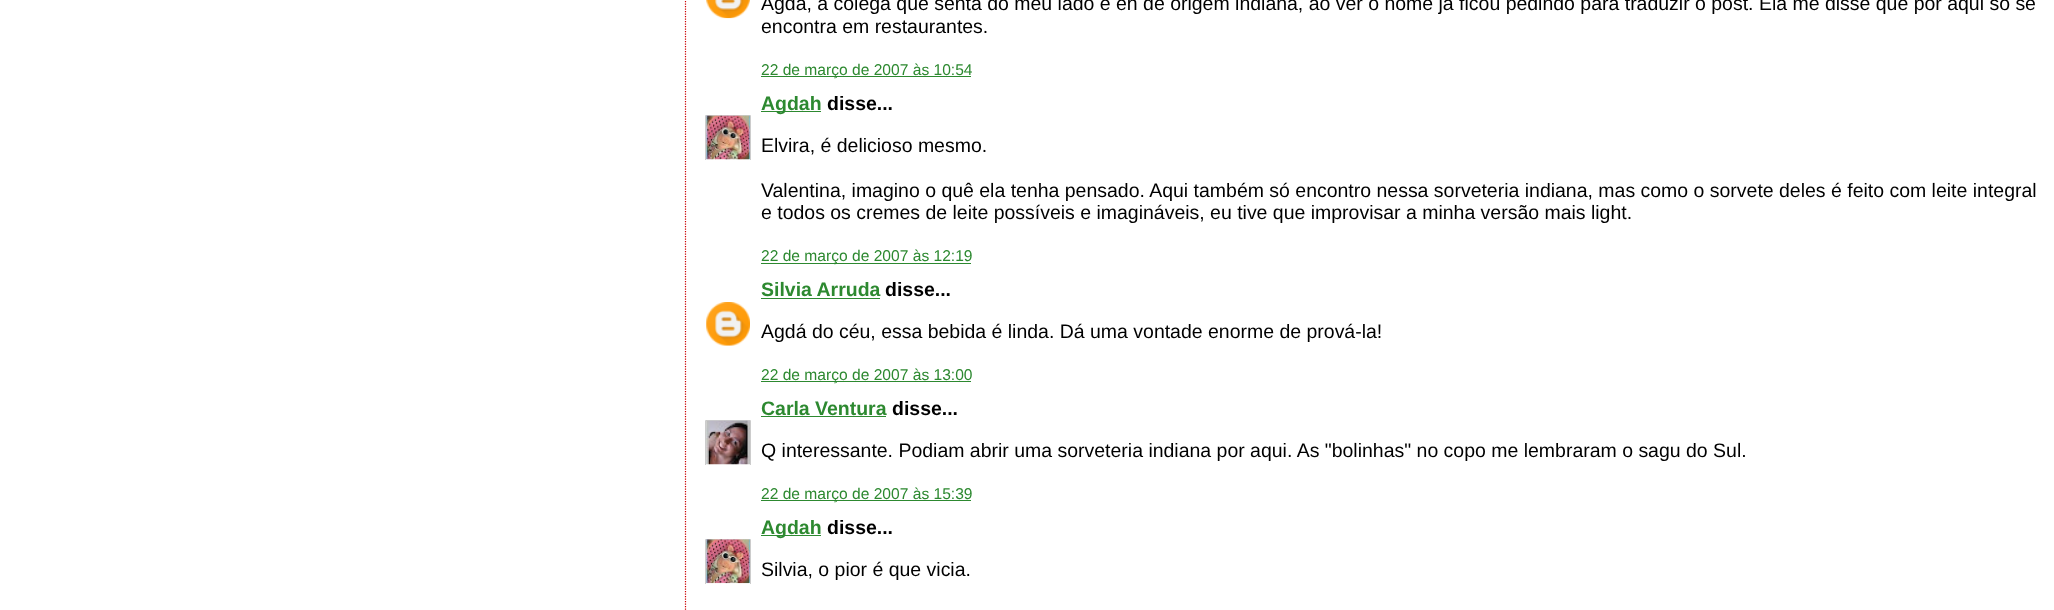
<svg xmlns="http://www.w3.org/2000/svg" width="2054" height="610">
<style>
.a{font:19.48px Liberation Sans;fill:#000}
.b{font:15.6px Liberation Sans;fill:#2d8930}
.c{font:bold 19.48px Liberation Sans;fill:#2d8930}
.d{font:bold 19.48px Liberation Sans;fill:#000}
</style>
<defs>
<clipPath id="clip1"><path d="M705 115h46v45H705z"/></clipPath>
<clipPath id="clip2"><path d="M705 420h46v45H705z"/></clipPath>
<clipPath id="clip3"><path d="M705 539h46v45H705z"/></clipPath>
</defs>
<rect width="100%" height="100%" fill="#fff"/>
<path fill="none" stroke="#c00" stroke-width="1.2" stroke-dasharray="1.25 1.25" d="M685.5-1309v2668"/>
<image href="1.png" x="706" y="0" width="44" height="19"/>
<path fill="#2d8930" d="M761 76h210v1H761z"/>
<path fill="#2d8930" d="M761 111h60v1H761z"/>
<g clip-path="url(#clip1)">
<path fill="none" stroke="#ccc" d="M705.5 115.5h45v45H705.5z"/>
</g>
<image href="2.png" x="706" y="115" width="44" height="45"/>
<path fill="#2d8930" d="M761 263h210v1H761z"/>
<path fill="#2d8930" d="M761 298h119v1H761z"/>
<image href="3.png" x="706" y="302" width="44" height="44"/>
<path fill="#2d8930" d="M761 381h210v1H761z"/>
<path fill="#2d8930" d="M761 416h125v1H761z"/>
<g clip-path="url(#clip2)">
<path fill="none" stroke="#ccc" d="M705.5 420.5h45v45H705.5z"/>
</g>
<image href="4.png" x="706" y="420" width="44" height="45"/>
<path fill="#2d8930" d="M761 500h210v1H761z"/>
<path fill="#2d8930" d="M761 535h60v1H761z"/>
<g clip-path="url(#clip3)">
<path fill="none" stroke="#ccc" d="M705.5 539.5h45v45H705.5z"/>
</g>
<image href="5.png" x="706" y="539" width="44" height="45"/>
<text class="a" x="761" y="10">Agda, a colega que senta do meu lado e eh de origem indiana, ao ver o nome ja ficou pedindo para traduzir o post. Ela me disse que por aqui so se</text>
<text class="a" x="761" y="33">encontra em restaurantes.</text>
<text class="b" x="761" y="75">22 de março de 2007 às 10:54</text>
<text class="c" x="761" y="110">Agdah</text>
<text class="d" x="827" y="110">disse...</text>
<text class="a" x="761" y="152">Elvira, é delicioso mesmo.</text>
<text class="a" x="761" y="197">Valentina, imagino o quê ela tenha pensado. Aqui também só encontro nessa sorveteria indiana, mas como o sorvete deles é feito com leite integral</text>
<text class="a" x="761" y="219">e todos os cremes de leite possíveis e imagináveis, eu tive que improvisar a minha versão mais light.</text>
<text class="b" x="761" y="261">22 de março de 2007 às 12:19</text>
<text class="c" x="761" y="296">Silvia Arruda</text>
<text class="d" x="885" y="296">disse...</text>
<text class="a" x="761" y="338">Agdá do céu, essa bebida é linda. Dá uma vontade enorme de prová-la!</text>
<text class="b" x="761" y="380">22 de março de 2007 às 13:00</text>
<text class="c" x="761" y="415">Carla Ventura</text>
<text class="d" x="892" y="415">disse...</text>
<text class="a" x="761" y="457">Q interessante. Podiam abrir uma sorveteria indiana por aqui. As "bolinhas" no copo me lembraram o sagu do Sul.</text>
<text class="b" x="761" y="499">22 de março de 2007 às 15:39</text>
<text class="c" x="761" y="534">Agdah</text>
<text class="d" x="827" y="534">disse...</text>
<text class="a" x="761" y="576">Silvia, o pior é que vicia.</text>
</svg>
